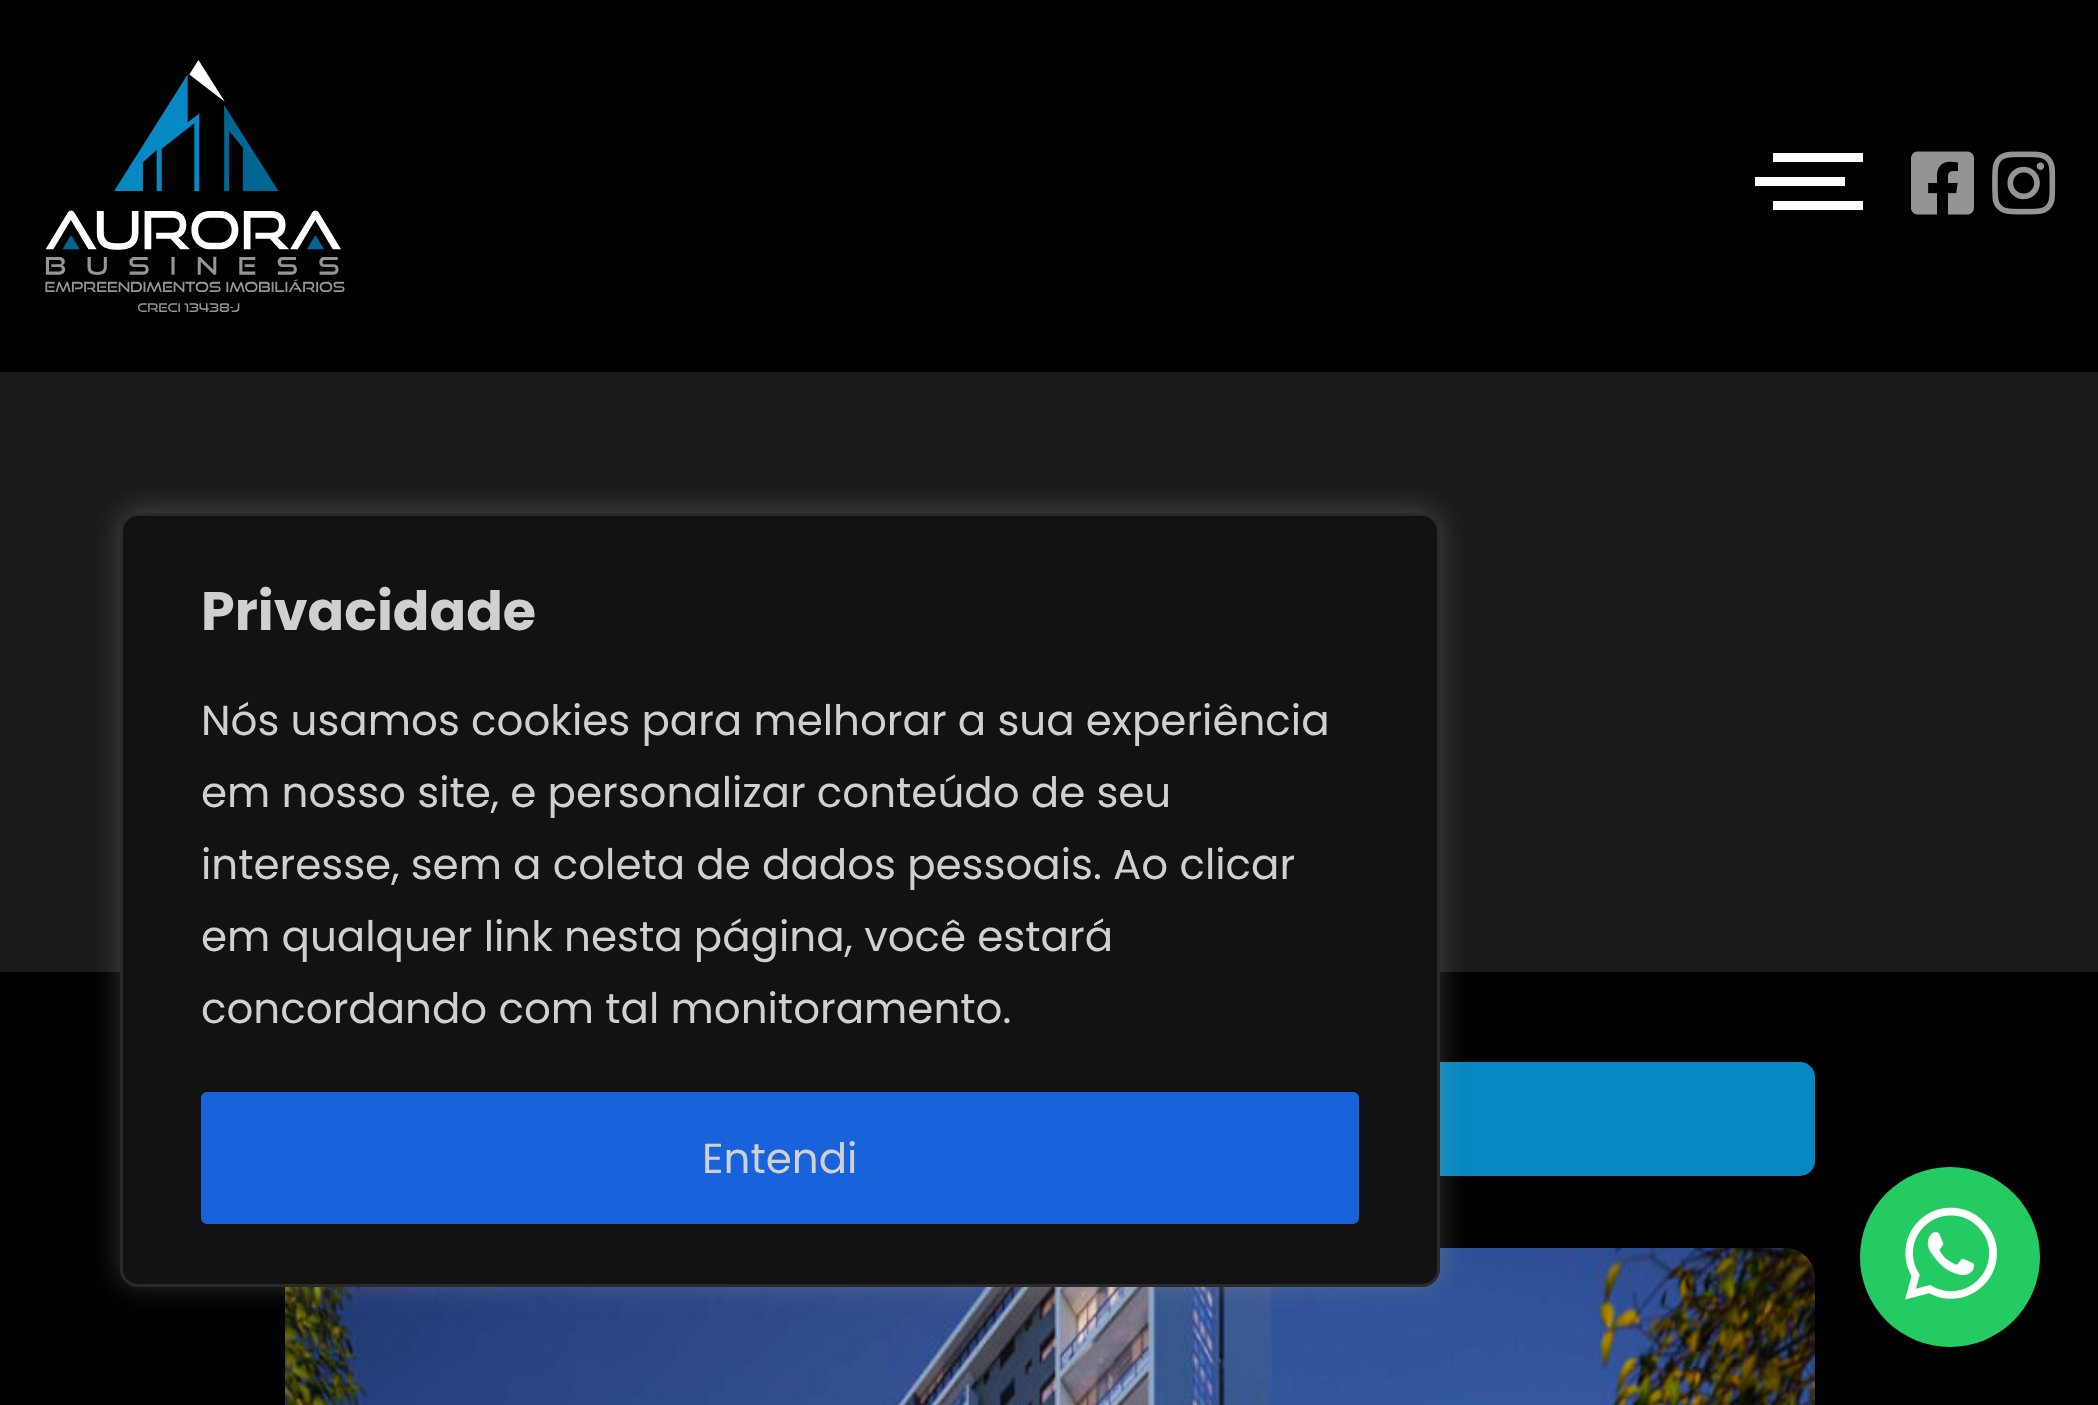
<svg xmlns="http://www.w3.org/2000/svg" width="2098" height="1405">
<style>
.a{font:bold 54px Poppins;fill:#d0d0d0}
.b{font:42px Poppins;fill:#d0d0d0}
</style>
<rect width="100%" height="100%" fill="#000"/>
<image href="1.png" x="45" y="60" width="300" height="252"/>
<path fill="#fff" d="M1773 153h90v9H1773z"/>
<path fill="#fff" d="M1755 177h90v9H1755z"/>
<path fill="#fff" d="M1773 201h90v9H1773z"/>
<image href="2.png" x="1911" y="151" width="63" height="64"/>
<image href="3.png" x="1992" y="151" width="64" height="64"/>
<path fill="#1a1a1a" d="M0 372h2098v600H0z"/>
<rect fill="#0688c2" stroke="#0688c2" stroke-width="3" x="286.5" y="1063.5" width="1527" height="111" rx="13.5"/>
<image href="4.png" x="285" y="1248" width="1530" height="157"/>
<rect fill="#acabab4d" filter="blur(15px)" x="120" y="510" width="1320" height="774" rx="18"/>
<rect fill="#121212" stroke="#2a2a2a" stroke-width="3" x="121.5" y="514.5" width="1317" height="771" rx="16.5"/>
<rect fill="#1863dc" stroke="#1863dc" stroke-width="6" x="204" y="1095" width="1152" height="126" rx="3"/>
<circle fill="#24cb62" cx="1950" cy="1257" r="90"/>
<image href="5.png" x="1905" y="1207" width="92" height="93"/>
<text class="a" x="201" y="630">Privacidade</text>
<text class="b" x="201" y="735">Nós usamos cookies para melhorar a sua experiência</text>
<text class="b" x="201" y="807">em nosso site, e personalizar conteúdo de seu</text>
<text class="b" x="201" y="879">interesse, sem a coleta de dados pessoais. Ao clicar</text>
<text class="b" x="201" y="951">em qualquer link nesta página, você estará</text>
<text class="b" x="201" y="1023">concordando com tal monitoramento.</text>
<text class="b" x="702" y="1173">Entendi</text>
</svg>
